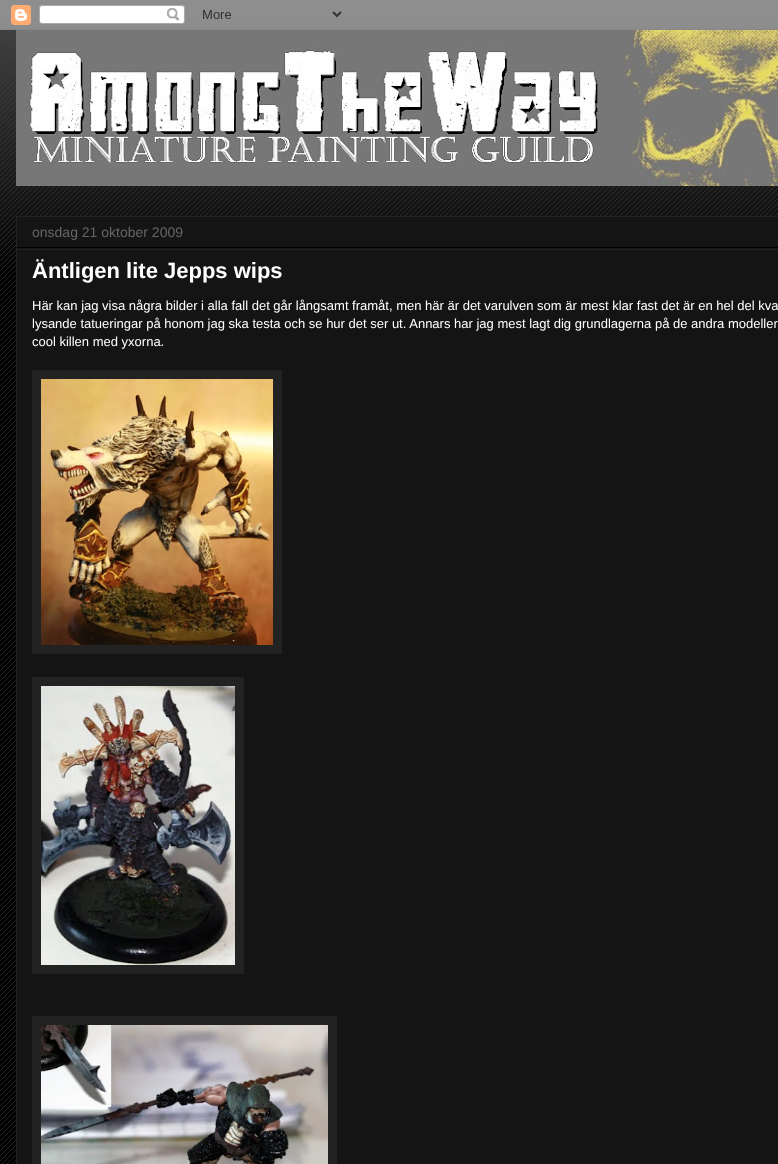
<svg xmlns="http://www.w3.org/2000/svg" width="778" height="1164">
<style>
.a{font:14px Liberation Sans;fill:#666}
.b{font:bold 22px Liberation Sans;fill:#fff}
.c{font:13px Liberation Sans;fill:#fff}
</style>
<rect width="100%" height="100%" fill="#000"/>
<image href="1.png" x="0" y="13" width="778" height="1151"/>
<image href="2.png" x="0" y="0" width="778" height="268"/>
<image href="3.png" x="0" y="0" width="778" height="30"/>
<image href="4.png" x="16" y="30" width="762" height="156"/>
<path fill="#141414" stroke="#222" d="M16.5 216.5h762v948H16.5z"/>
<path fill="#000" d="M17 247h761v1H17z"/>
<path fill="#222" d="M17 249h761v1H17z"/>
<path fill="#222" d="M32 370h250v284H32z"/>
<image href="5.png" x="41" y="379" width="232" height="266"/>
<path fill="#222" d="M32 677h212v297H32z"/>
<image href="6.png" x="41" y="686" width="194" height="279"/>
<path fill="#222" d="M32 1016h305v148H32z"/>
<image href="7.png" x="41" y="1025" width="287" height="139"/>
<text class="a" x="32" y="237">onsdag 21 oktober 2009</text>
<text class="b" x="32" y="278">Äntligen lite Jepps wips</text>
<text class="c" x="32" y="310">Här kan jag visa några bilder i alla fall det går långsamt framåt, men här är det varulven som är mest klar fast det är en hel del kva</text>
<text class="c" x="32" y="328">lysande tatueringar på honom jag ska testa och se hur det ser ut. Annars har jag mest lagt dig grundlagerna på de andra modeller</text>
<text class="c" x="32" y="346">cool killen med yxorna.</text>
</svg>
